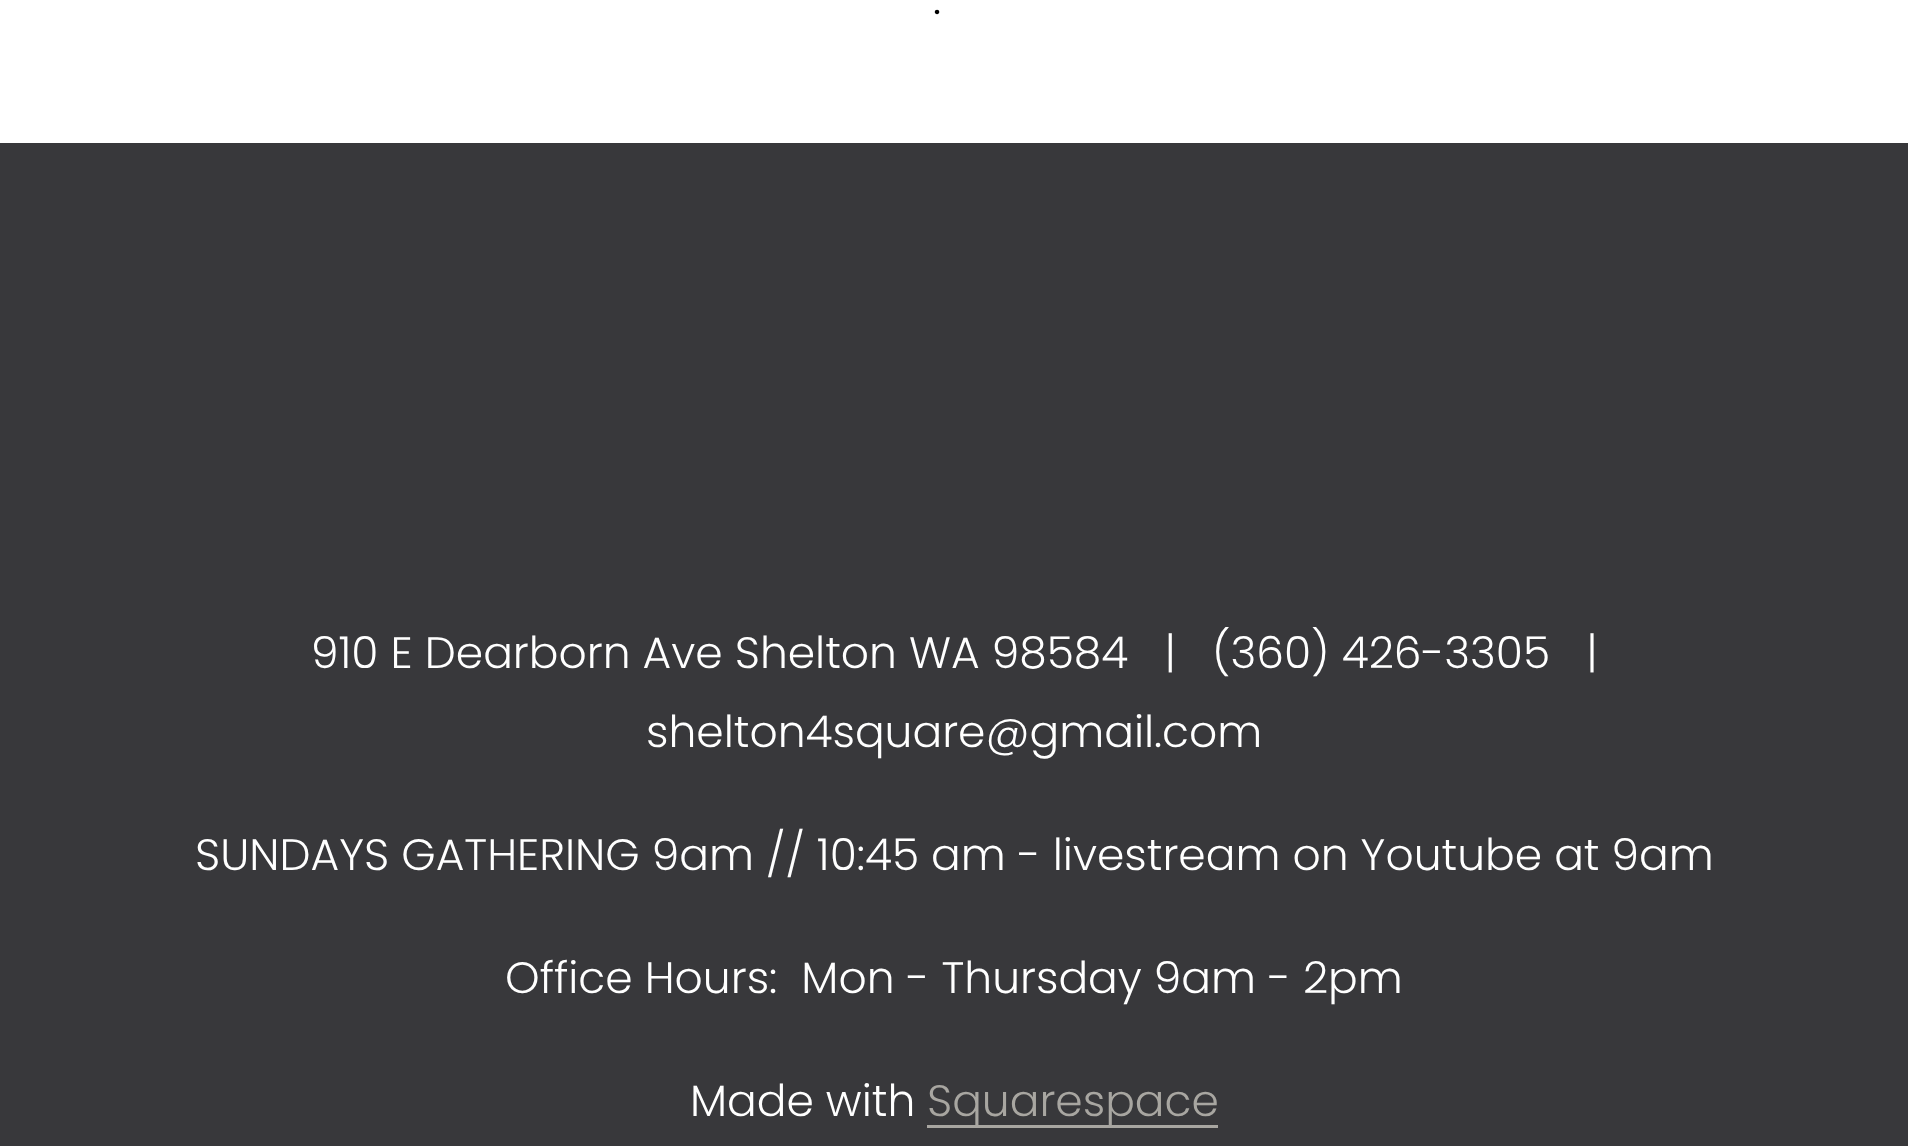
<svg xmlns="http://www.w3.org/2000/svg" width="1908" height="1146">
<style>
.a{font:300 44px Poppins;fill:#000}
.b{font:300 44px Poppins;fill:#fff}
.c{font:300 44px Poppins;fill:#a8a6a1}
</style>
<rect width="100%" height="100%" fill="#fff"/>
<path fill="#38383b" d="M0 143h1908v1003H0z"/>
<path fill="#a8a6a1" d="M927 1125h291v3H927z"/>
<text class="a" x="933" y="14">.</text>
<text class="b" xml:space="preserve" x="311" y="668">910 E Dearborn Ave Shelton WA 98584   |   (360) 426-3305   |</text>
<text class="b" x="646" y="747">shelton4square@gmail.com</text>
<text class="b" x="195" y="870">SUNDAYS GATHERING 9am // 10:45 am - livestream on Youtube at 9am</text>
<text class="b" xml:space="preserve" x="505" y="993">Office Hours:  Mon - Thursday 9am - 2pm</text>
<text class="b" x="690" y="1116">Made with</text>
<text class="c" x="927" y="1116">Squarespace</text>
</svg>
